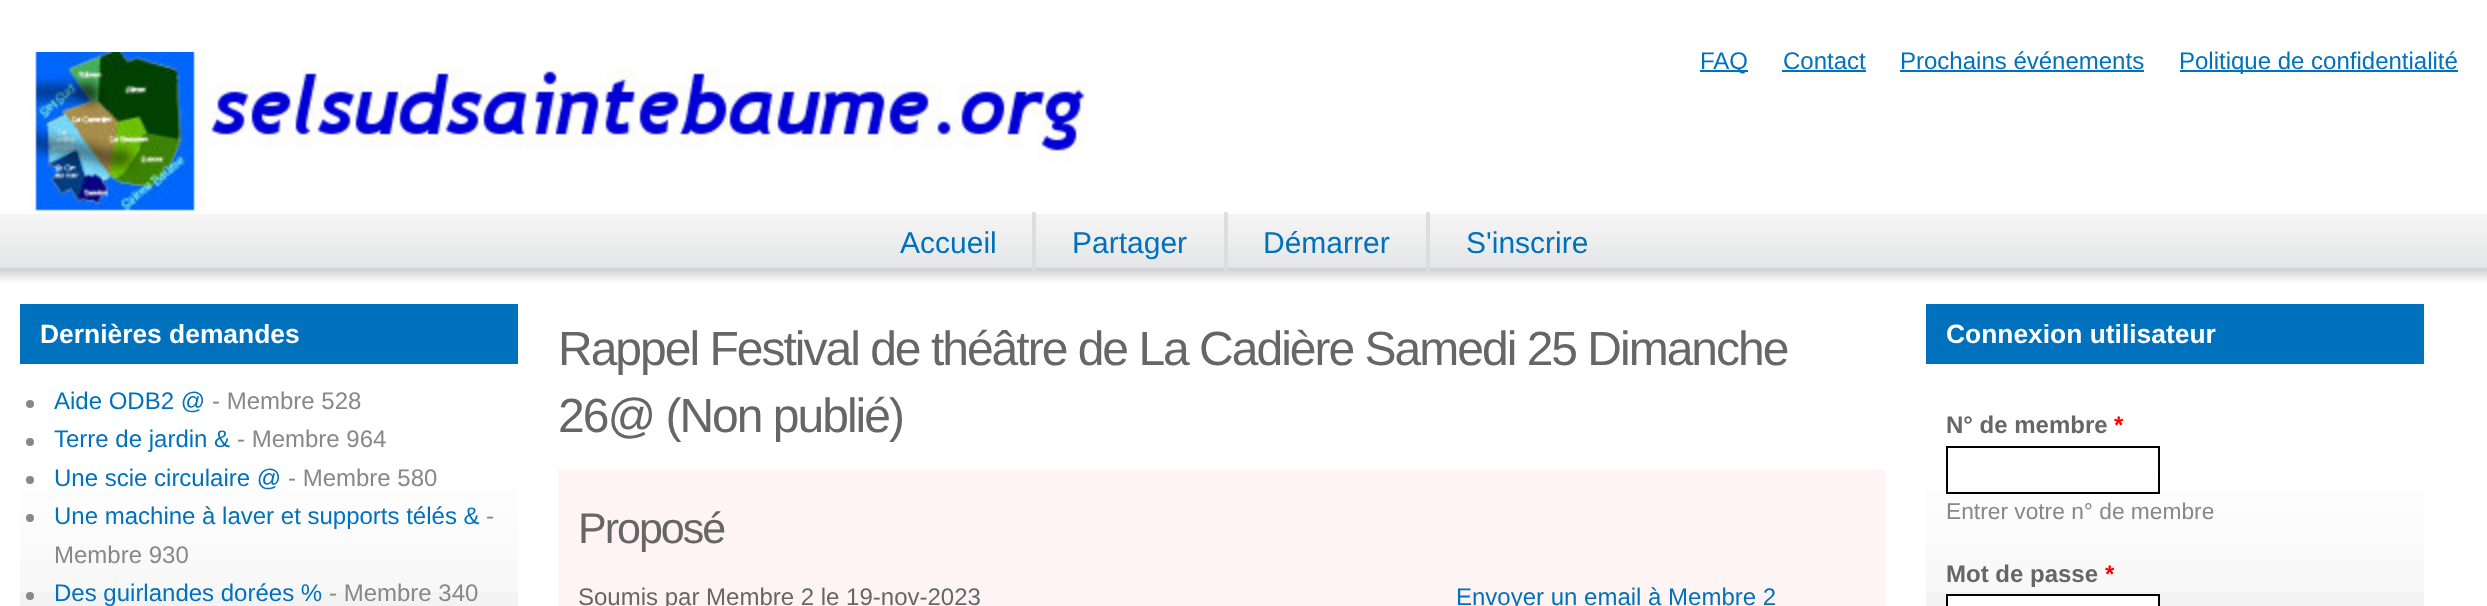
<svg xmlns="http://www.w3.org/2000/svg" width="2487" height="606">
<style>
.a{font:24px Liberation Sans;fill:#0071bc}
.b{font:30px Liberation Sans;fill:#0071bc}
.c{font:bold 26.4px Liberation Sans;fill:#fff}
.d{font:24px Liberation Sans;fill:#888}
.e{font:48px Liberation Sans;letter-spacing:-2px;fill:#666}
.f{font:43px Liberation Sans;letter-spacing:-2px;fill:#666}
.g{font:24px Liberation Sans;fill:#666}
.h{font:bold 24px Liberation Sans;fill:#666}
.i{font:bold 24px Liberation Sans;fill:#f00}
.j{font:22.75px Liberation Sans;fill:#888}
</style>
<rect width="100%" height="100%" fill="#fff"/>
<image href="1.png" x="30" y="52" width="1057" height="160"/>
<path fill="#0071bc" d="M1700 70h48v2H1700z"/>
<path fill="#0071bc" d="M1782 70h84v2H1782z"/>
<path fill="#0071bc" d="M1900 70h244v2H1900z"/>
<path fill="#0071bc" d="M2180 70h278v2H2180z"/>
<image href="2.png" x="0" y="214" width="2487" height="68"/>
<path fill="#ddd" d="M1032 212h4v60H1032z"/>
<path fill="#ddd" d="M1224 212h4v60H1224z"/>
<path fill="#ddd" d="M1426 212h4v60H1426z"/>
<path fill="#f3f3f3" d="M20 592h498v14H20z"/>
<image href="3.png" x="20" y="364" width="498" height="228"/>
<path fill="#0071bc" d="M20 304h498v60H20z"/>
<circle fill="#888" cx="30" cy="404" r="4"/>
<circle fill="#888" cx="30" cy="442" r="4"/>
<circle fill="#888" cx="30" cy="480" r="4"/>
<circle fill="#888" cx="30" cy="518" r="4"/>
<circle fill="#888" cx="30" cy="596" r="4"/>
<path fill="#fff4f4" d="M558 470h1328v136H558z"/>
<path fill="#f3f3f3" d="M1926 592h498v14H1926z"/>
<image href="3.png" x="1926" y="364" width="498" height="228"/>
<path fill="#0071bc" d="M1926 304h498v60H1926z"/>
<path fill="none" stroke="#000" stroke-width="2" d="M1947 447h212v46H1947z"/>
<path fill="#fff" stroke="#000" stroke-width="2" d="M1947 595h212v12H1947z"/>
<text class="a" x="1700" y="69">FAQ</text>
<text class="a" x="1783" y="69">Contact</text>
<text class="a" x="1900" y="69">Prochains événements</text>
<text class="a" x="2179" y="69">Politique de confidentialité</text>
<text class="b" x="900" y="253">Accueil</text>
<text class="b" x="1072" y="253">Partager</text>
<text class="b" x="1263" y="253">Démarrer</text>
<text class="b" x="1466" y="253">S'inscrire</text>
<text class="c" x="40" y="343">Dernières demandes</text>
<text class="a" x="54" y="409">Aide ODB2 @</text>
<text class="d" x="212" y="409">- Membre 528</text>
<text class="a" x="54" y="447">Terre de jardin &amp;</text>
<text class="d" x="237" y="447">- Membre 964</text>
<text class="a" x="54" y="486">Une scie circulaire @</text>
<text class="d" x="288" y="486">- Membre 580</text>
<text class="a" x="54" y="524">Une machine à laver et supports télés &amp;</text>
<text class="d" x="486" y="524">-</text>
<text class="d" x="54" y="563">Membre 930</text>
<text class="a" x="54" y="601">Des guirlandes dorées %</text>
<text class="d" x="329" y="601">- Membre 340</text>
<text class="e" x="558" y="365">Rappel Festival de théâtre de La Cadière Samedi 25 Dimanche</text>
<text class="e" x="558" y="432">26@ (Non publié)</text>
<text class="f" x="578" y="543">Proposé</text>
<text class="g" x="578" y="605">Soumis par Membre 2 le 19-nov-2023</text>
<text class="a" x="1456" y="605">Envoyer un email à Membre 2</text>
<text class="c" x="1946" y="343">Connexion utilisateur</text>
<text class="h" x="1946" y="433">N° de membre</text>
<text class="i" x="2114" y="433">*</text>
<text class="j" x="1946" y="519">Entrer votre n° de membre</text>
<text class="h" x="1946" y="582">Mot de passe</text>
<text class="i" x="2105" y="582">*</text>
</svg>
